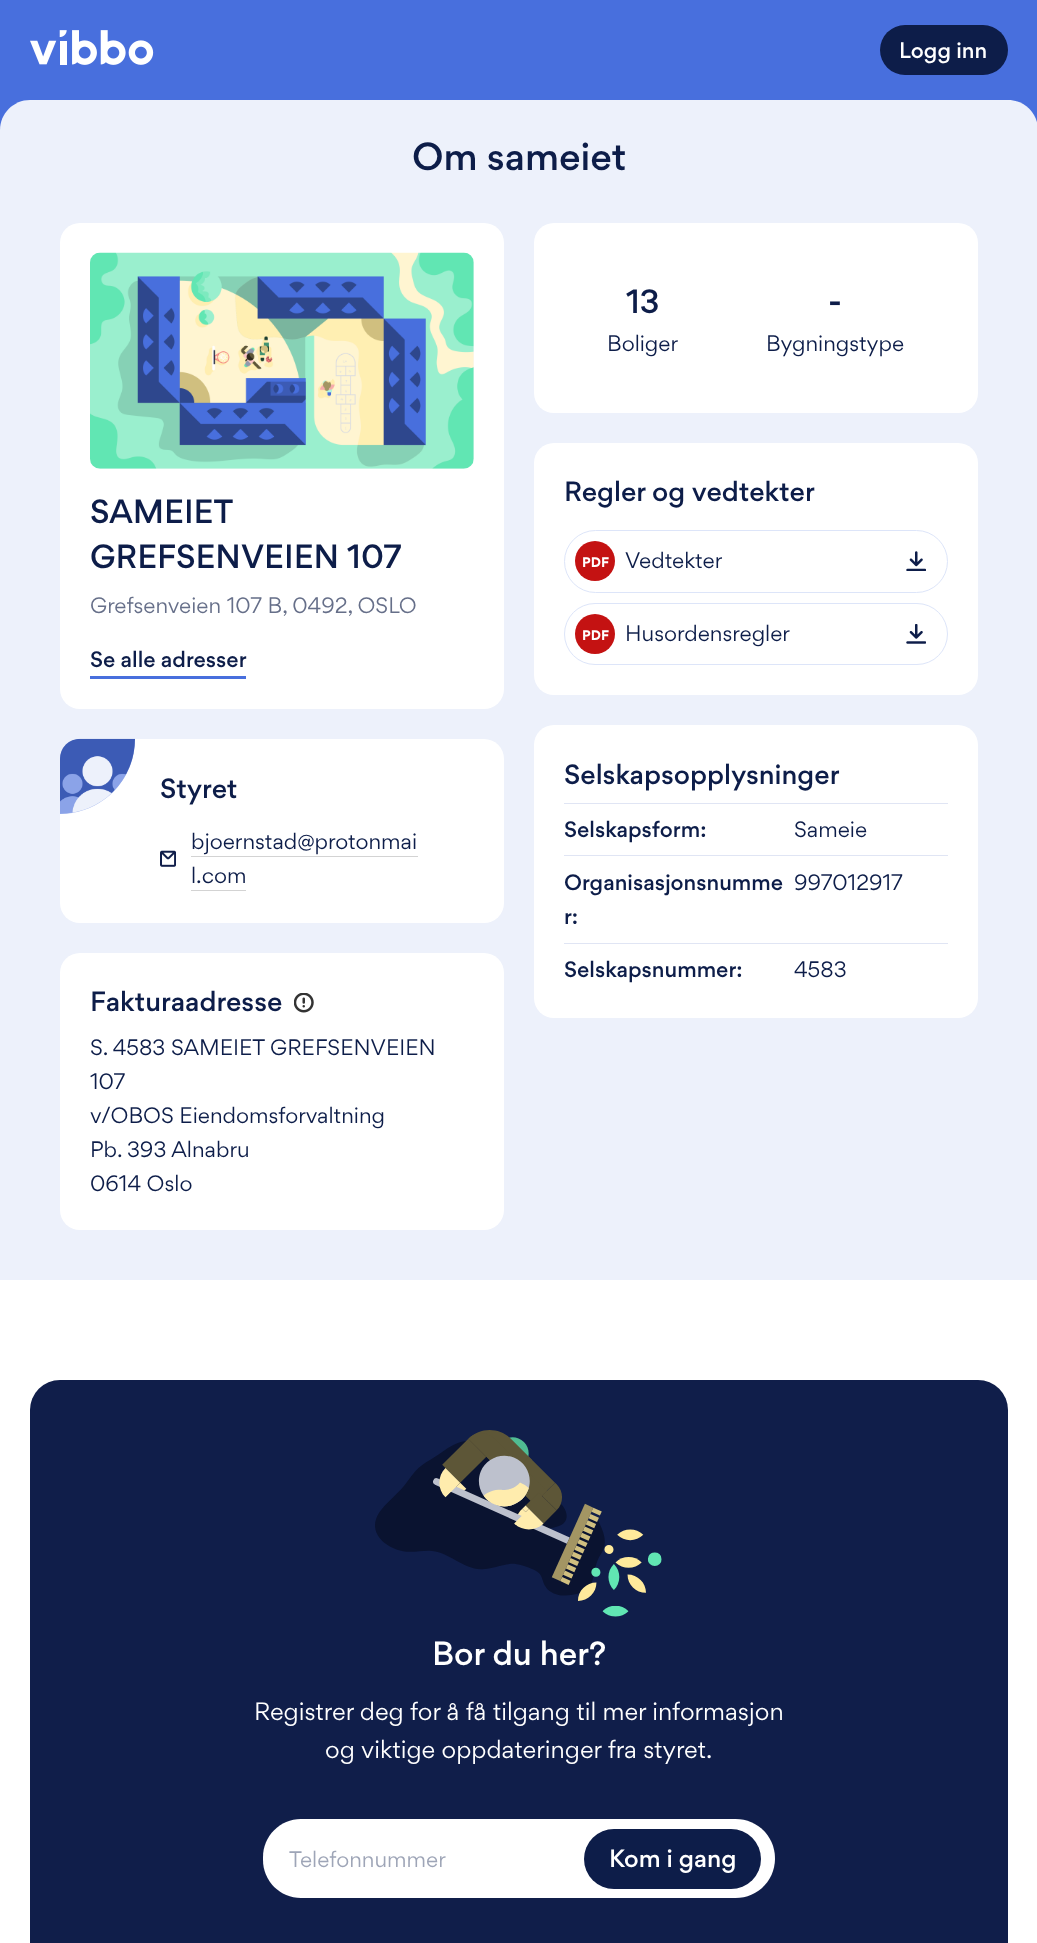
<svg xmlns="http://www.w3.org/2000/svg" width="1037" height="1943">
<style>
.a{font:500 20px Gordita;fill:#fff}
.b{font:500 35px Gordita;fill:#0d1d49}
.c{font:500 30px Gordita;fill:#0d1d49}
.d{font:20px Gordita;fill:#666f89}
.e{font:500 20px Gordita;fill:#0d1d49}
.f{font:500 25px Gordita;fill:#0d1d49}
.g{font:20px Gordita;fill:#0d1d49}
.h{font:bold 12.5px Gordita;fill:#fff}
.i{font:500 30px Gordita;fill:#fff}
.j{font:22.5px Gordita;fill:#fff}
.k{font:20px Gordita;fill:#9ea5b7}
.l{font:500 22.5px Gordita;fill:#fff}
</style>
<rect width="100%" height="100%" fill="#486fdd"/>
<image href="1.png" x="30" y="30" width="124" height="35"/>
<rect fill="#0d1d49" x="880" y="25" width="128" height="50" rx="25"/>
<path fill="#edf1fb" d="M30 100h978c16.5 0 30 13.5 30 30v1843h-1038v-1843c0-16.5 13.5-30 30-30z"/>
<rect fill="#fff" x="60" y="223" width="444" height="486" rx="20"/>
<rect fill="#f9f9fb" x="90" y="253" width="384" height="216" rx="10"/>
<image href="2.png" x="90" y="252" width="384" height="217"/>
<path fill="#486fdd" d="M90 676h156v3H90z"/>
<rect fill="#fff" x="60" y="739" width="444" height="184" rx="20"/>
<path fill="#abbdef" d="M80 739h55c0 41.5-33.5 75-75 75v-55c0-11 9-20 20-20z"/>
<image href="3.png" x="60" y="738" width="75" height="76"/>
<image href="4.png" x="160" y="850" width="16" height="17"/>
<path fill="#d3d3d3" d="M191 856h227v1H191z"/>
<path fill="#d3d3d3" d="M191 890h55v1H191z"/>
<rect fill="#fff" x="60" y="953" width="444" height="277" rx="20"/>
<image href="5.png" x="294" y="993" width="20" height="20"/>
<rect fill="#fff" x="534" y="223" width="444" height="190" rx="20"/>
<rect fill="#fff" x="534" y="443" width="444" height="252" rx="20"/>
<rect fill="none" stroke="#dde5f9" x="564.5" y="530.5" width="383" height="62" rx="31"/>
<circle fill="#c41212" cx="595" cy="561" r="20"/>
<image href="6.png" x="906" y="551" width="20" height="20"/>
<rect fill="none" stroke="#dde5f9" x="564.5" y="603.5" width="383" height="61" rx="30.5"/>
<circle fill="#c41212" cx="595" cy="634" r="20"/>
<image href="7.png" x="906" y="624" width="20" height="20"/>
<rect fill="#fff" x="534" y="725" width="444" height="293" rx="20"/>
<path fill="#e0e5f4" d="M564 803h384v1H564z"/>
<path fill="#e0e5f4" d="M564 855h384v1H564z"/>
<path fill="#e0e5f4" d="M564 943h384v1H564z"/>
<path fill="#fff" d="M0 1280h1037v663H0z"/>
<rect fill="#101e4a" x="30" y="1380" width="978" height="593" rx="30"/>
<image href="8.png" x="375" y="1430" width="287" height="187"/>
<path fill="#fff" d="M301 1819h277v79h-277c-21 0-38-17-38-38v-3c0-21 17-38 38-38z"/>
<path fill="#fff" d="M578 1819h157.5c22 0 39.5 17.5 39.5 39.5c0 22-17.5 39.5-39.5 39.5h-157.5z"/>
<rect fill="#0d1d49" x="584" y="1829" width="177" height="60" rx="30"/>
<text class="a" x="899" y="58">Logg inn</text>
<text class="b" x="412" y="170">Om sameiet</text>
<text class="c" x="90" y="523">SAMEIET</text>
<text class="c" x="90" y="568">GREFSENVEIEN 107</text>
<text class="d" x="90" y="613">Grefsenveien 107 B, 0492, OSLO</text>
<text class="e" x="90" y="667">Se alle adresser</text>
<text class="f" x="160" y="798">Styret</text>
<text class="g" x="191" y="849">bjoernstad@protonmai</text>
<text class="g" x="191" y="883">l.com</text>
<text class="f" x="90" y="1011">Fakturaadresse</text>
<text class="g" x="90" y="1055">S. 4583 SAMEIET GREFSENVEIEN</text>
<text class="g" x="90" y="1089">107</text>
<text class="g" x="90" y="1123">v/OBOS Eiendomsforvaltning</text>
<text class="g" x="90" y="1157">Pb. 393 Alnabru</text>
<text class="g" x="90" y="1191">0614 Oslo</text>
<text class="c" x="626" y="313">13</text>
<text class="g" x="607" y="351">Boliger</text>
<text class="c" x="828" y="313">-</text>
<text class="g" x="766" y="351">Bygningstype</text>
<text class="f" x="564" y="501">Regler og vedtekter</text>
<text class="h" x="582" y="567">PDF</text>
<text class="g" x="625" y="568">Vedtekter</text>
<text class="h" x="582" y="640">PDF</text>
<text class="g" x="625" y="641">Husordensregler</text>
<text class="f" x="564" y="784">Selskapsopplysninger</text>
<text class="e" x="564" y="837">Selskapsform:</text>
<text class="g" x="794" y="837">Sameie</text>
<text class="e" x="564" y="890">Organisasjonsnumme</text>
<text class="e" x="564" y="924">r:</text>
<text class="g" x="794" y="890">997012917</text>
<text class="e" x="564" y="977">Selskapsnummer:</text>
<text class="g" x="794" y="977">4583</text>
<text class="i" x="432" y="1665">Bor du her?</text>
<text class="j" x="254" y="1720">Registrer deg for å få tilgang til mer informasjon</text>
<text class="j" x="325" y="1758">og viktige oppdateringer fra styret.</text>
<text class="k" x="289" y="1867">Telefonnummer</text>
<text class="l" x="609" y="1867">Kom i gang</text>
</svg>
